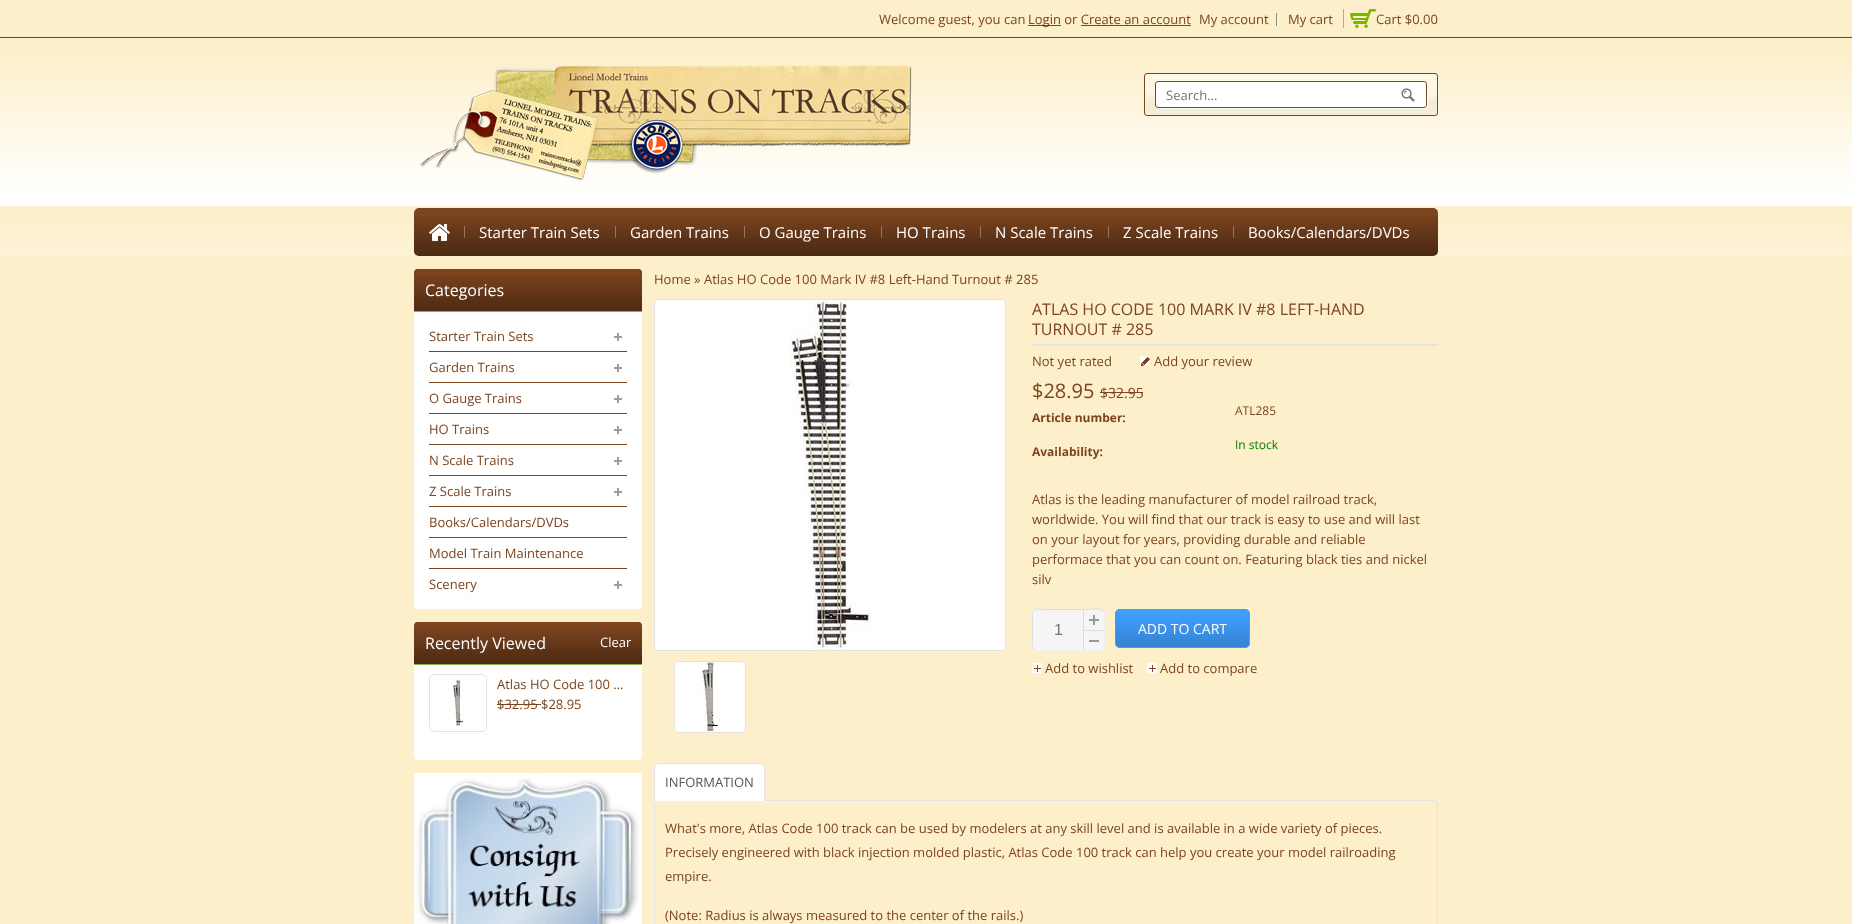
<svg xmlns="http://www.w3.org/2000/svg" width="1852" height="924">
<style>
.a{font:13px Open Sans;fill:#7c441f}
.b{font:13px Open Sans;fill:#757575}
.c{font:15px Open Sans;fill:#fff}
.d{font:16px Open Sans;fill:#fff}
.e{font:13px Open Sans;fill:#fff}
.f{font:16px Open Sans;fill:#7c441f}
.g{font:20px Open Sans;fill:#7c441f}
.h{font:14px Open Sans;fill:#7c441f}
.i{font:12px Open Sans;fill:#7c441f}
.j{font:bold 12px Open Sans;fill:#7c441f}
.k{font:12px Open Sans;fill:#008000}
.l{font:16px Liberation Sans;fill:#757575}
.m{font:14px Open Sans;fill:#fff}
.n{font:13px Open Sans;fill:#555}
</style>
<rect width="100%" height="100%" fill="#fdefca"/>
<path fill="#7c441f" d="M0 37h1852v1H0z"/>
<path fill="#7c441f" d="M1028 25h33v1H1028z"/>
<path fill="#7c441f" d="M1081 25h110v1H1081z"/>
<path fill="#8e8e8e" d="M1276 13h1v13H1276z"/>
<path fill="#a8a8a8" d="M1343 9h1v19H1343z"/>
<image href="1.png" x="1350" y="9" width="26" height="19"/>
<image href="2.png" x="0" y="58" width="1852" height="198"/>
<image href="3.png" x="420" y="65" width="492" height="116"/>
<image href="4.png" x="1144" y="73" width="294" height="43"/>
<rect fill="none" stroke="#7c441f" x="1144.5" y="73.5" width="293" height="42" rx="2.5"/>
<path fill="#fff" d="M1156 108c1 0 2 1 3 1h266c2 0 3-1 3-3v-21c0-1-1-2-1-3v2v21c0 2-1 3-3 3h-266z"/>
<rect fill="#fff" x="1155" y="81" width="272" height="27" rx="3"/>
<image href="5.png" x="1401" y="88" width="14" height="14"/>
<rect fill="none" stroke="#7c441f" x="1155.5" y="81.5" width="271" height="26" rx="2.5"/>
<rect fill="#7c441f" x="414" y="208" width="1024" height="48" rx="5"/>
<image href="6.png" x="414" y="216" width="1024" height="40"/>
<image href="7.png" x="429" y="224" width="21" height="17"/>
<path fill="#ffffff4d" d="M464 226h1v12H464z"/>
<path fill="#ffffff4d" d="M615 226h1v12H615z"/>
<path fill="#ffffff4d" d="M744 226h1v12H744z"/>
<path fill="#ffffff4d" d="M881 226h1v12H881z"/>
<path fill="#ffffff4d" d="M980 226h1v12H980z"/>
<path fill="#ffffff4d" d="M1108 226h1v12H1108z"/>
<path fill="#ffffff4d" d="M1233 226h1v12H1233z"/>
<path fill="#fff" d="M414 269h228v337c0 1.5-1.5 3-3 3h-222c-1.5 0-3-1.5-3-3z"/>
<path fill="#8db442" d="M414 311h228v1H414z"/>
<path fill="#7c441f" d="M417 269h222c1.5 0 3 1.5 3 3v39h-228v-39c0-1.5 1.5-3 3-3z"/>
<image href="8.png" x="414" y="275" width="228" height="36"/>
<path fill="#7c441f" d="M429 351h198v1H429z"/>
<image href="9.png" x="614" y="333" width="8" height="8"/>
<path fill="#7c441f" d="M429 382h198v1H429z"/>
<image href="9.png" x="614" y="364" width="8" height="8"/>
<path fill="#7c441f" d="M429 413h198v1H429z"/>
<image href="9.png" x="614" y="395" width="8" height="8"/>
<path fill="#7c441f" d="M429 444h198v1H429z"/>
<image href="9.png" x="614" y="426" width="8" height="8"/>
<path fill="#7c441f" d="M429 475h198v1H429z"/>
<image href="9.png" x="614" y="457" width="8" height="8"/>
<path fill="#7c441f" d="M429 506h198v1H429z"/>
<image href="9.png" x="614" y="488" width="8" height="8"/>
<path fill="#7c441f" d="M429 537h198v1H429z"/>
<path fill="#7c441f" d="M429 568h198v1H429z"/>
<image href="9.png" x="614" y="581" width="8" height="8"/>
<path fill="#fff" d="M414 622h228v135c0 1.5-1.5 3-3 3h-222c-1.5 0-3-1.5-3-3z"/>
<path fill="#8db442" d="M414 664h228v1H414z"/>
<path fill="#7c441f" d="M417 622h222c1.5 0 3 1.5 3 3v39h-228v-39c0-1.5 1.5-3 3-3z"/>
<image href="8.png" x="414" y="628" width="228" height="36"/>
<rect fill="none" stroke="#e3e3e3" x="429.5" y="674.5" width="57" height="57" rx="4.5"/>
<image href="10.png" x="451" y="680" width="13" height="46"/>
<path fill="#7c441f" d="M497 704h44v1H497z"/>
<image href="11.png" x="414" y="773" width="228" height="151"/>
<rect fill="none" stroke="#e3e3e3" x="654.5" y="299.5" width="351" height="351" rx="2.5"/>
<image href="12.png" x="655" y="300" width="350" height="350"/>
<rect fill="none" stroke="#e3e3e3" x="674.5" y="661.5" width="71" height="71" rx="4.5"/>
<image href="13.png" x="675" y="662" width="70" height="70"/>
<path fill="#e3e3e3" d="M1032 344h406v2H1032z"/>
<path fill="#7c441f" d="M1141 357h9v9H1141z"/>
<image href="14.png" x="1140" y="356" width="10" height="10"/>
<path fill="#7c441f" d="M1100 392h43v1H1100z"/>
<rect fill="#f5f5f5" x="1032" y="609" width="73" height="42" rx="4"/>
<path fill="none" stroke="#eee" d="M1103.5 610.5c2 2 1 6.5 1 8v23c0 11.5-1.5 9-14.5 9h-43c-1 0-11 1.5-13.5-1"/>
<path fill="none" stroke="#ddd" d="M1033.5 649.5c-2-2-1-6.5-1-8v-23c0-11.5 1.5-9 14.5-9h43c1 0 11-1.5 13.5 1"/>
<path fill="#ddd" d="M1083 610h1v40H1083z"/>
<image href="15.png" x="1089" y="615" width="10" height="10"/>
<image href="16.png" x="1084" y="630" width="20" height="12"/>
<rect fill="#3f9fff" x="1115" y="609" width="135" height="39" rx="5"/>
<image href="17.png" x="1115" y="609" width="135" height="39"/>
<rect fill="none" stroke="#3f9fff" x="1115.5" y="609.5" width="134" height="38" rx="4.5"/>
<path fill="#7c441f" d="M1034 665h7v7H1034z"/>
<image href="18.png" x="1032" y="663" width="10" height="10"/>
<path fill="#7c441f" d="M1149 665h7v7H1149z"/>
<image href="18.png" x="1147" y="663" width="10" height="10"/>
<path fill="none" stroke="#e3e3e3" d="M654.5 800.5h778.5c2.5 0 4.5 2 4.5 4.5v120c0 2.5-2 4.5-4.5 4.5h-774c-2.5 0-4.5-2-4.5-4.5z"/>
<path fill="#fff" d="M659 763h101c3 0 5 2 5 5v33h-111v-33c0-3 2-5 5-5z"/>
<path fill="#e3e3e3" d="M659 763c-1 0-3 1-4 1l1 1l3-1h101l3 1l1-1c-1 0-2-1-4-1z"/>
<path fill="#e3e3e3" d="M765 801v-33c0-1.5-.5-3-1.5-3.5l-.5 .5c.5 1 1 2 1 3v32z"/>
<path fill="#fff" d="M765 801l-1-1h-109l-1 1z"/>
<path fill="#e3e3e3" d="M654 801l1-1v-32c0-1 .5-2 1-3l-.5-.5c-1 .5-1.5 2-1.5 3.5z"/>
<text class="a" x="879" y="24">Welcome guest, you can</text>
<text class="a" x="1028" y="24">Login or Create an account</text>
<text class="a" x="1199" y="24">My account</text>
<text class="a" x="1288" y="24">My cart</text>
<text class="a" x="1376" y="24">Cart $0.00</text>
<text class="b" x="1166" y="100">Search...</text>
<text class="c" x="479" y="238">Starter Train Sets</text>
<text class="c" x="630" y="238">Garden Trains</text>
<text class="c" x="759" y="238">O Gauge Trains</text>
<text class="c" x="896" y="238">HO Trains</text>
<text class="c" x="995" y="238">N Scale Trains</text>
<text class="c" x="1123" y="238">Z Scale Trains</text>
<text class="c" x="1248" y="238">Books/Calendars/DVDs</text>
<text class="d" x="425" y="296">Categories</text>
<text class="a" x="429" y="341">Starter Train Sets</text>
<text class="a" x="429" y="372">Garden Trains</text>
<text class="a" x="429" y="403">O Gauge Trains</text>
<text class="a" x="429" y="434">HO Trains</text>
<text class="a" x="429" y="465">N Scale Trains</text>
<text class="a" x="429" y="496">Z Scale Trains</text>
<text class="a" x="429" y="527">Books/Calendars/DVDs</text>
<text class="a" x="429" y="558">Model Train Maintenance</text>
<text class="a" x="429" y="589">Scenery</text>
<text class="d" x="425" y="649">Recently Viewed</text>
<text class="e" x="600" y="647">Clear</text>
<text class="a" x="497" y="689">Atlas HO Code 100 …</text>
<text class="a" x="497" y="709">$32.95 $28.95</text>
<text class="a" x="654" y="284">Home » Atlas HO Code 100 Mark IV #8 Left-Hand Turnout # 285</text>
<text class="f" x="1032" y="315">ATLAS HO CODE 100 MARK IV #8 LEFT-HAND</text>
<text class="f" x="1032" y="335">TURNOUT # 285</text>
<text class="a" x="1032" y="366">Not yet rated</text>
<text class="a" x="1154" y="366">Add your review</text>
<text class="g" x="1032" y="398">$28.95</text>
<text class="h" x="1100" y="398">$32.95</text>
<text class="i" x="1235" y="415">ATL285</text>
<text class="j" x="1032" y="422">Article number:</text>
<text class="k" x="1235" y="449">In stock</text>
<text class="j" x="1032" y="456">Availability:</text>
<text class="a" x="1032" y="504">Atlas is the leading manufacturer of model railroad track,</text>
<text class="a" x="1032" y="524">worldwide. You will find that our track is easy to use and will last</text>
<text class="a" x="1032" y="544">on your layout for years, providing durable and reliable</text>
<text class="a" x="1032" y="564">performace that you can count on. Featuring black ties and nickel</text>
<text class="a" x="1032" y="584">silv</text>
<text class="l" x="1054" y="635">1</text>
<text class="m" x="1138" y="634">ADD TO CART</text>
<text class="a" x="1045" y="673">Add to wishlist</text>
<text class="a" x="1160" y="673">Add to compare</text>
<text class="n" x="665" y="787">INFORMATION</text>
<text class="a" x="665" y="833">What's more, Atlas Code 100 track can be used by modelers at any skill level and is available in a wide variety of pieces.</text>
<text class="a" x="665" y="857">Precisely engineered with black injection molded plastic, Atlas Code 100 track can help you create your model railroading</text>
<text class="a" x="665" y="881">empire.</text>
<text class="a" x="665" y="920">(Note: Radius is always measured to the center of the rails.)</text>
</svg>
